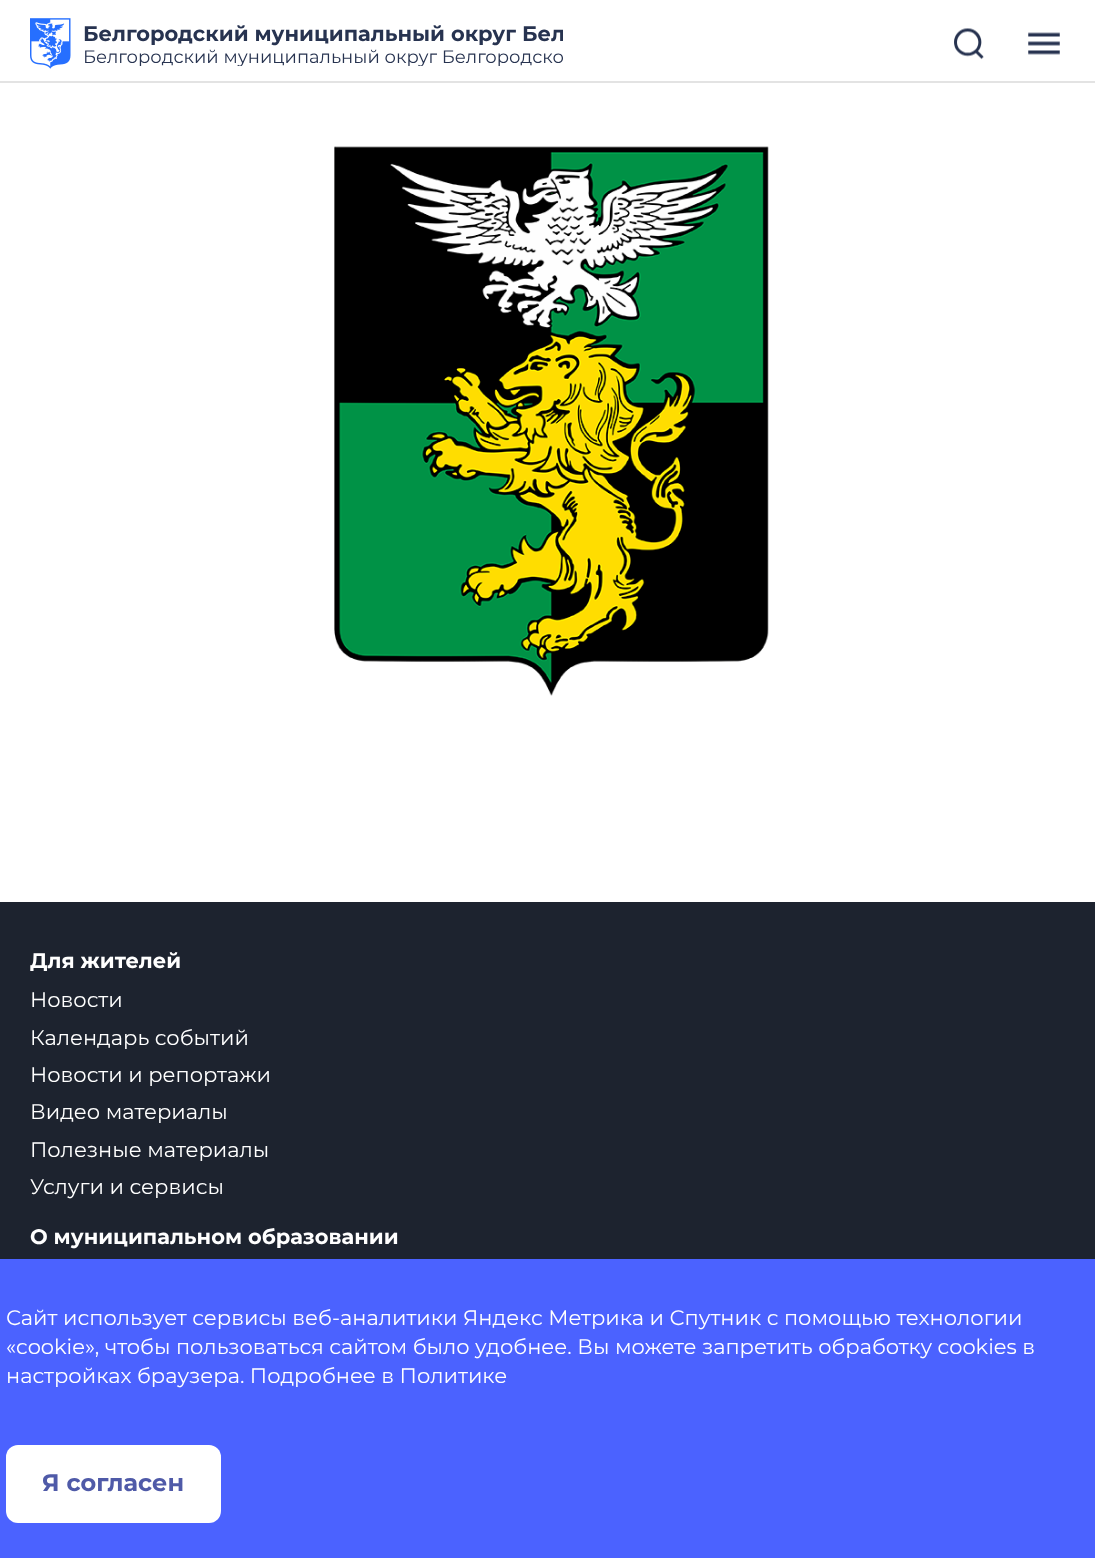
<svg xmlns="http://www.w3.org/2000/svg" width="1095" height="1558">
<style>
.a{font:bold 21px Montserrat;fill:#273350}
.b{font:18px Montserrat;fill:#273350}
.c{font:bold 21px Montserrat;fill:#fff}
.d{font:21px Montserrat;fill:#fff}
.e{font:bold 24px Montserrat;fill:#4f5aa8}
</style>
<defs>
<clipPath id="clip1"><path d="M83 21h480v27H83z"/></clipPath>
<clipPath id="clip2"><path d="M83 48h480v18H83z"/></clipPath>
</defs>
<rect width="100%" height="100%" fill="#fff"/>
<path fill="#e3e3e3" d="M0 81h1095v2H0z"/>
<image href="1.png" x="30" y="18" width="41" height="51"/>
<image href="2.png" x="954" y="28" width="30" height="32"/>
<image href="3.png" x="1028" y="32" width="32" height="23"/>
<image href="4.png" x="334" y="146" width="435" height="550"/>
<path fill="#1d232f" d="M0 902h1095v357H0z"/>
<path fill="#4b62ff" d="M0 1259h1095v299H0z"/>
<rect fill="#fff" x="6" y="1445" width="215" height="78" rx="12"/>
<g clip-path="url(#clip1)">
<text class="a" x="83" y="41">Белгородский муниципальный округ Бел</text>
</g>
<g clip-path="url(#clip2)">
<text class="b" x="83" y="63">Белгородский муниципальный округ Белгородско</text>
</g>
<text class="c" x="30" y="968">Для жителей</text>
<text class="d" x="30" y="1007">Новости</text>
<text class="d" x="30" y="1045">Календарь событий</text>
<text class="d" x="30" y="1082">Новости и репортажи</text>
<text class="d" x="30" y="1119">Видео материалы</text>
<text class="d" x="30" y="1157">Полезные материалы</text>
<text class="d" x="30" y="1194">Услуги и сервисы</text>
<text class="c" x="30" y="1244">О муниципальном образовании</text>
<text class="d" x="6" y="1325">Сайт использует сервисы веб-аналитики Яндекс Метрика и Спутник с помощью технологии</text>
<text class="d" x="6" y="1354">«cookie», чтобы пользоваться сайтом было удобнее. Вы можете запретить обработку cookies в</text>
<text class="d" x="6" y="1383">настройках браузера. Подробнее в Политике</text>
<text class="e" x="42" y="1491">Я согласен</text>
</svg>
